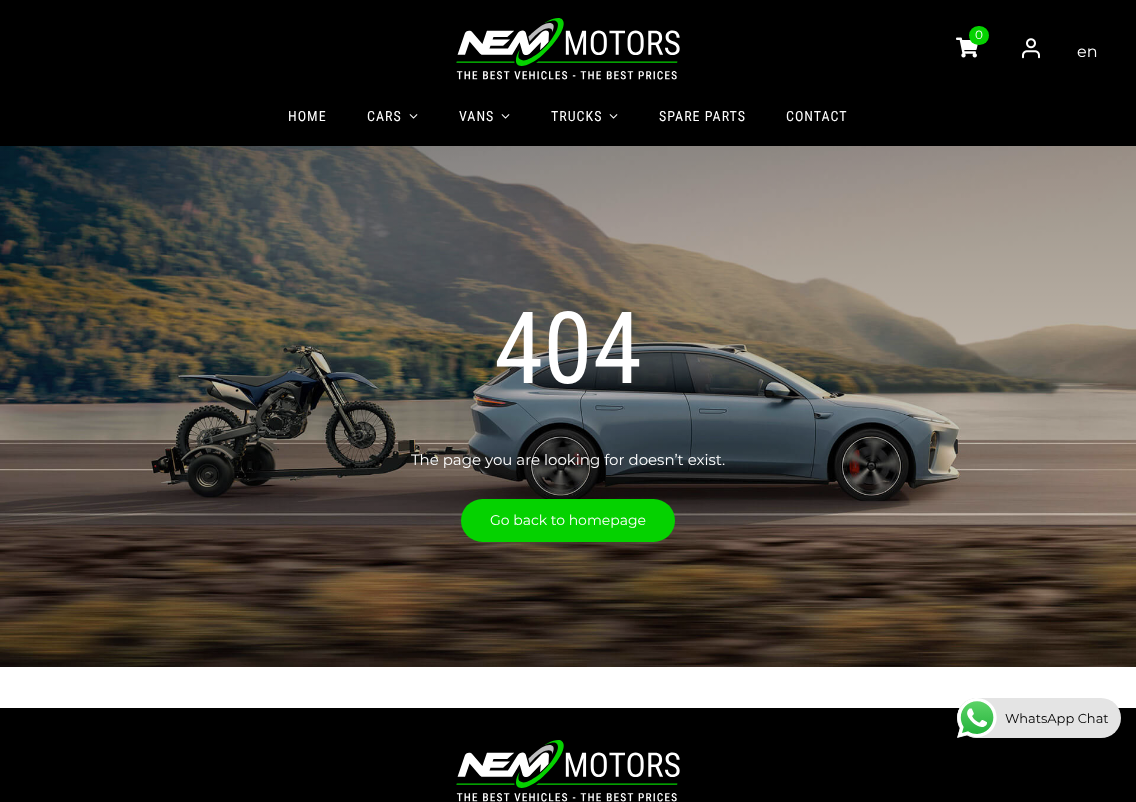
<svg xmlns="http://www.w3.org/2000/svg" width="1136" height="802">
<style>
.a{font:100 12px Montserrat;fill:#fff}
.b{font:100 16px Montserrat;fill:#fff}
.c{font:14px Roboto Condensed;letter-spacing:1px;fill:#fff}
.d{font:100px Roboto Condensed;fill:#fff}
.e{font:100 15px Montserrat;fill:#fff}
.f{font:100 14px Montserrat;fill:#fff}
.g{font:100 13px Montserrat;fill:#000}
</style>
<rect width="100%" height="100%" fill="#fff"/>
<path fill="#000" d="M0 0h1136v146H0z"/>
<image href="1.png" x="456" y="18" width="224" height="62"/>
<image href="2.png" x="956" y="37" width="22" height="21"/>
<rect fill="#05d200" x="969" y="26" width="20" height="19" rx="9.5"/>
<image href="3.png" x="1022" y="38" width="18" height="21"/>
<image href="4.png" x="409" y="114" width="9" height="5"/>
<image href="4.png" x="501" y="114" width="9" height="5"/>
<image href="4.png" x="609" y="114" width="9" height="5"/>
<image href="5.png" x="0" y="146" width="1136" height="521"/>
<rect fill="#05d200" x="461" y="499" width="214" height="43" rx="21.5"/>
<path fill="#000" d="M0 708h1136v94H0z"/>
<image href="6.png" x="456" y="740" width="224" height="62"/>
<rect fill="#e4e4e4" x="957" y="698" width="164" height="40" rx="20"/>
<image href="7.png" x="957" y="698" width="40" height="40"/>
<text class="a" x="975" y="39">0</text>
<text class="b" x="1077" y="57">en</text>
<text class="c" x="288" y="121">HOME</text>
<text class="c" x="367" y="121">CARS</text>
<text class="c" x="459" y="121">VANS</text>
<text class="c" x="551" y="121">TRUCKS</text>
<text class="c" x="659" y="121">SPARE PARTS</text>
<text class="c" x="786" y="121">CONTACT</text>
<text class="d" x="494" y="383">404</text>
<text class="e" x="411" y="465">The page you are looking for doesn’t exist.</text>
<text class="f" x="490" y="525">Go back to homepage</text>
<text class="g" x="1005" y="723">WhatsApp Chat</text>
</svg>
